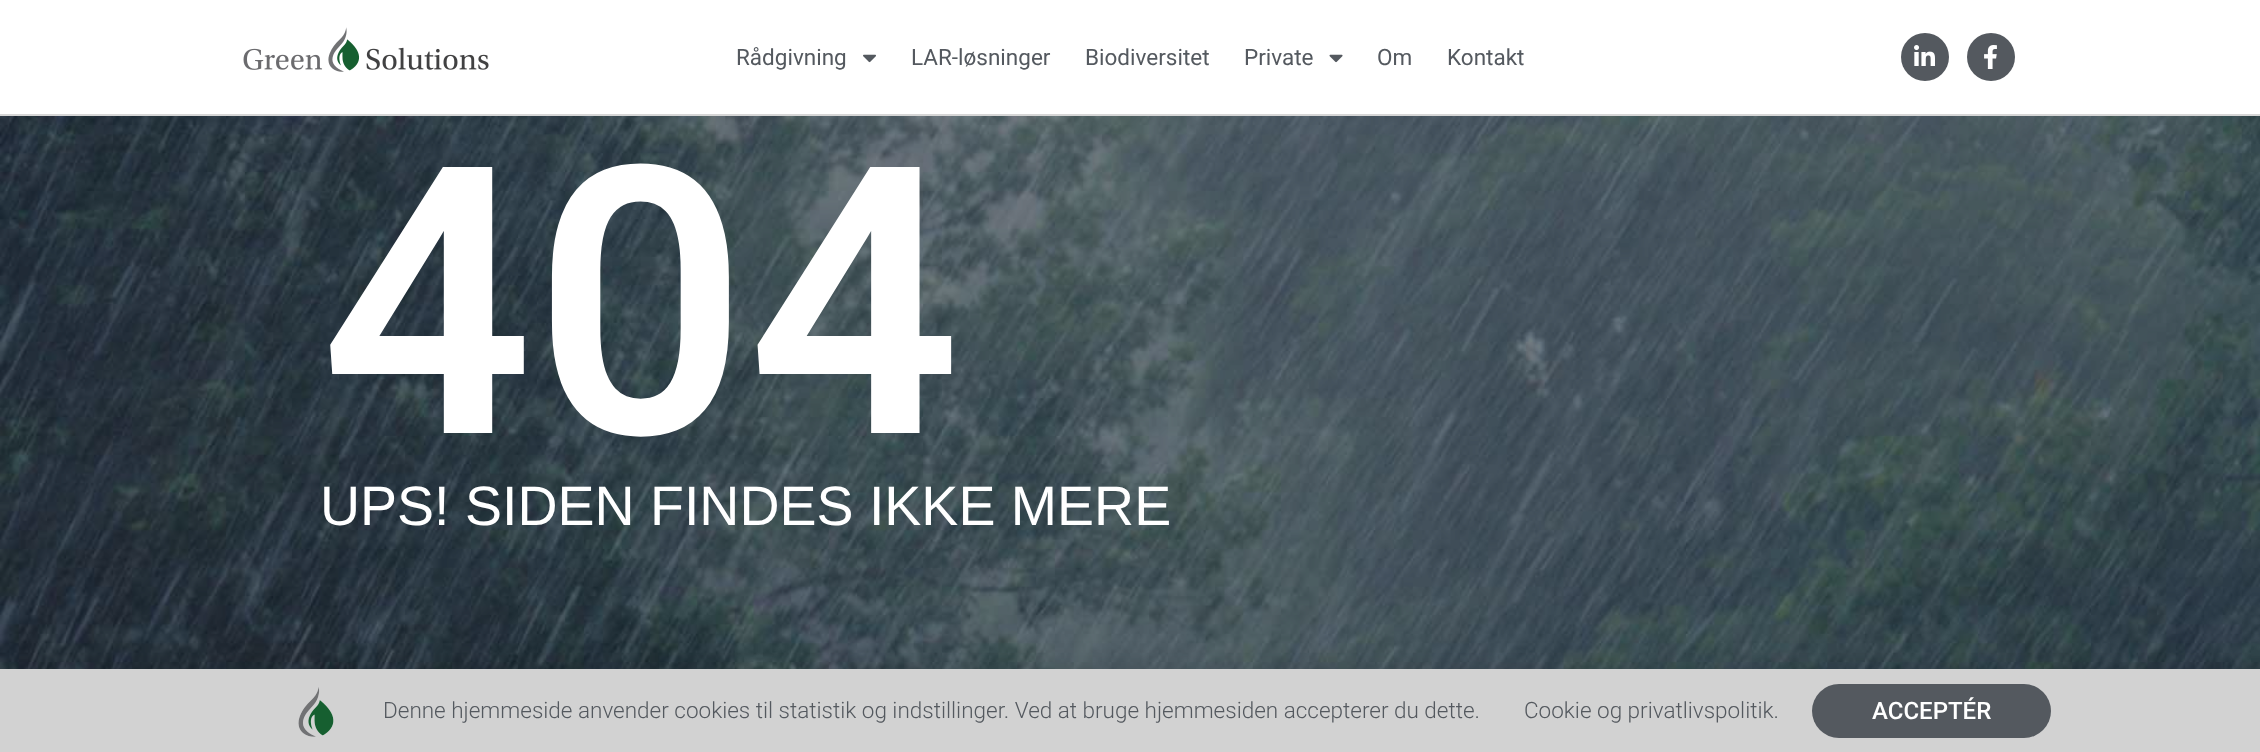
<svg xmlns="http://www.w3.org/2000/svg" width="2260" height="752">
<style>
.a{font:22.5px Roboto;fill:#54595f}
.b{font:600 374px Roboto;fill:#fff}
.c{font:55.5px Liberation Sans;fill:#fff}
.d{font:300 22.5px Roboto;fill:#54595f}
.e{font:500 24px Roboto;fill:#fff}
</style>
<rect width="100%" height="100%" fill="#fff"/>
<path fill="#d6d6d6" d="M0 114h2260v2H0z"/>
<image href="1.png" x="243" y="27" width="246" height="45"/>
<image href="2.png" x="863" y="54" width="13" height="9"/>
<image href="3.png" x="1329" y="54" width="14" height="9"/>
<circle fill="#54595f" cx="1925" cy="57" r="24"/>
<image href="4.png" x="1914" y="45" width="21" height="21"/>
<circle fill="#54595f" cx="1991" cy="57" r="24"/>
<image href="5.png" x="1984" y="45" width="13" height="24"/>
<image href="6.png" x="0" y="116" width="2260" height="553"/>
<path fill="#00000033" filter="blur(17px)" d="M-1 677h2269v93H-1z"/>
<path fill="#d2d2d2" d="M0 669h2260v83H0z"/>
<image href="7.png" x="298" y="687" width="36" height="50"/>
<rect fill="#54595f" x="1812" y="684" width="239" height="54" rx="27"/>
<text class="a" x="736" y="65">Rådgivning</text>
<text class="a" x="911" y="65">LAR-løsninger</text>
<text class="a" x="1085" y="65">Biodiversitet</text>
<text class="a" x="1244" y="65">Private</text>
<text class="a" x="1377" y="65">Om</text>
<text class="a" x="1447" y="65">Kontakt</text>
<text class="b" x="320" y="433">404</text>
<text class="c" x="320" y="525">UPS! SIDEN FINDES IKKE MERE</text>
<text class="d" x="383" y="718">Denne hjemmeside anvender cookies til statistik og indstillinger. Ved at bruge hjemmesiden accepterer du dette.</text>
<text class="d" x="1524" y="718">Cookie og privatlivspolitik.</text>
<text class="e" x="1872" y="719">ACCEPTÉR</text>
</svg>
